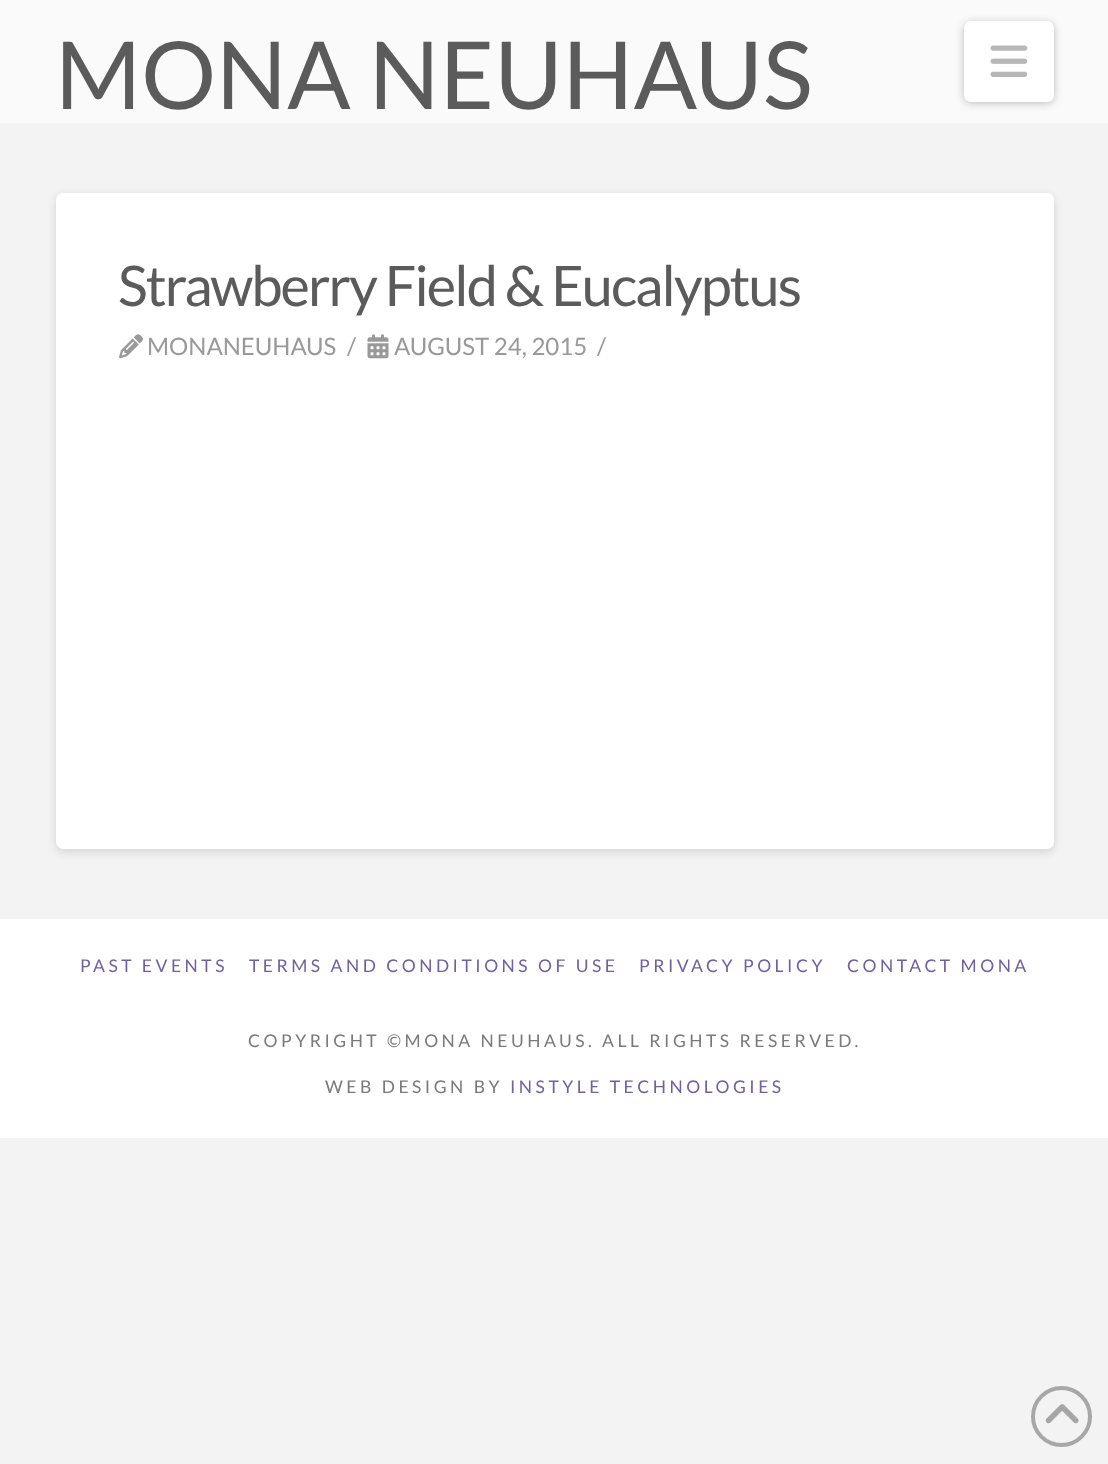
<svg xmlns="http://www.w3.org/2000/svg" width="1108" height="1464">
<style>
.a{font:93.75px Lato;fill:#5b5b5b}
.b{font:56px Lato;letter-spacing:-1.95px;fill:#5b5b5b}
.c{font:24px Lato;fill:#999}
.d{font:17.5px Lato;letter-spacing:3.5px;fill:#715f9e}
.e{font:17.5px Lato;letter-spacing:3.5px;fill:#7a7a7a}
</style>
<rect width="100%" height="100%" fill="#f3f3f3"/>
<path fill="#fafafa" d="M0 0h1108v123H0z"/>
<rect fill="#00000040" filter="blur(4.5px)" x="964" y="23" width="90" height="80" rx="7"/>
<rect fill="#fff" x="964" y="21" width="90" height="81" rx="7"/>
<image href="1.png" x="990" y="45" width="38" height="32"/>
<rect fill="#00000021" filter="blur(5px)" x="56" y="196" width="998" height="656" rx="7"/>
<rect fill="#fff" x="56" y="193" width="998" height="656" rx="7"/>
<image href="2.png" x="119" y="334" width="24" height="25"/>
<image href="3.png" x="367" y="334" width="22" height="25"/>
<path fill="#fff" d="M0 919h1108v219H0z"/>
<circle fill="none" stroke="#a7a7a7" stroke-width="4" cx="1061.5" cy="1416.5" r="28.5"/>
<image href="4.png" x="1045" y="1404" width="34" height="20"/>
<text class="a" x="55" y="109">MONA NEUHAUS</text>
<text class="b" x="118" y="306">Strawberry Field &amp; Eucalyptus</text>
<text class="c" x="147" y="355">MONANEUHAUS</text>
<text class="c" x="347" y="355">/</text>
<text class="c" x="394" y="355">AUGUST 24, 2015</text>
<text class="c" x="597" y="355">/</text>
<text class="d" x="80" y="972">PAST EVENTS</text>
<text class="d" x="249" y="972">TERMS AND CONDITIONS OF USE</text>
<text class="d" x="639" y="972">PRIVACY POLICY</text>
<text class="d" x="847" y="972">CONTACT MONA</text>
<text class="e" x="248" y="1047">COPYRIGHT ©MONA NEUHAUS. ALL RIGHTS RESERVED.</text>
<text class="e" x="325" y="1093">WEB DESIGN BY</text>
<text class="d" x="510" y="1093">INSTYLE TECHNOLOGIES</text>
</svg>
